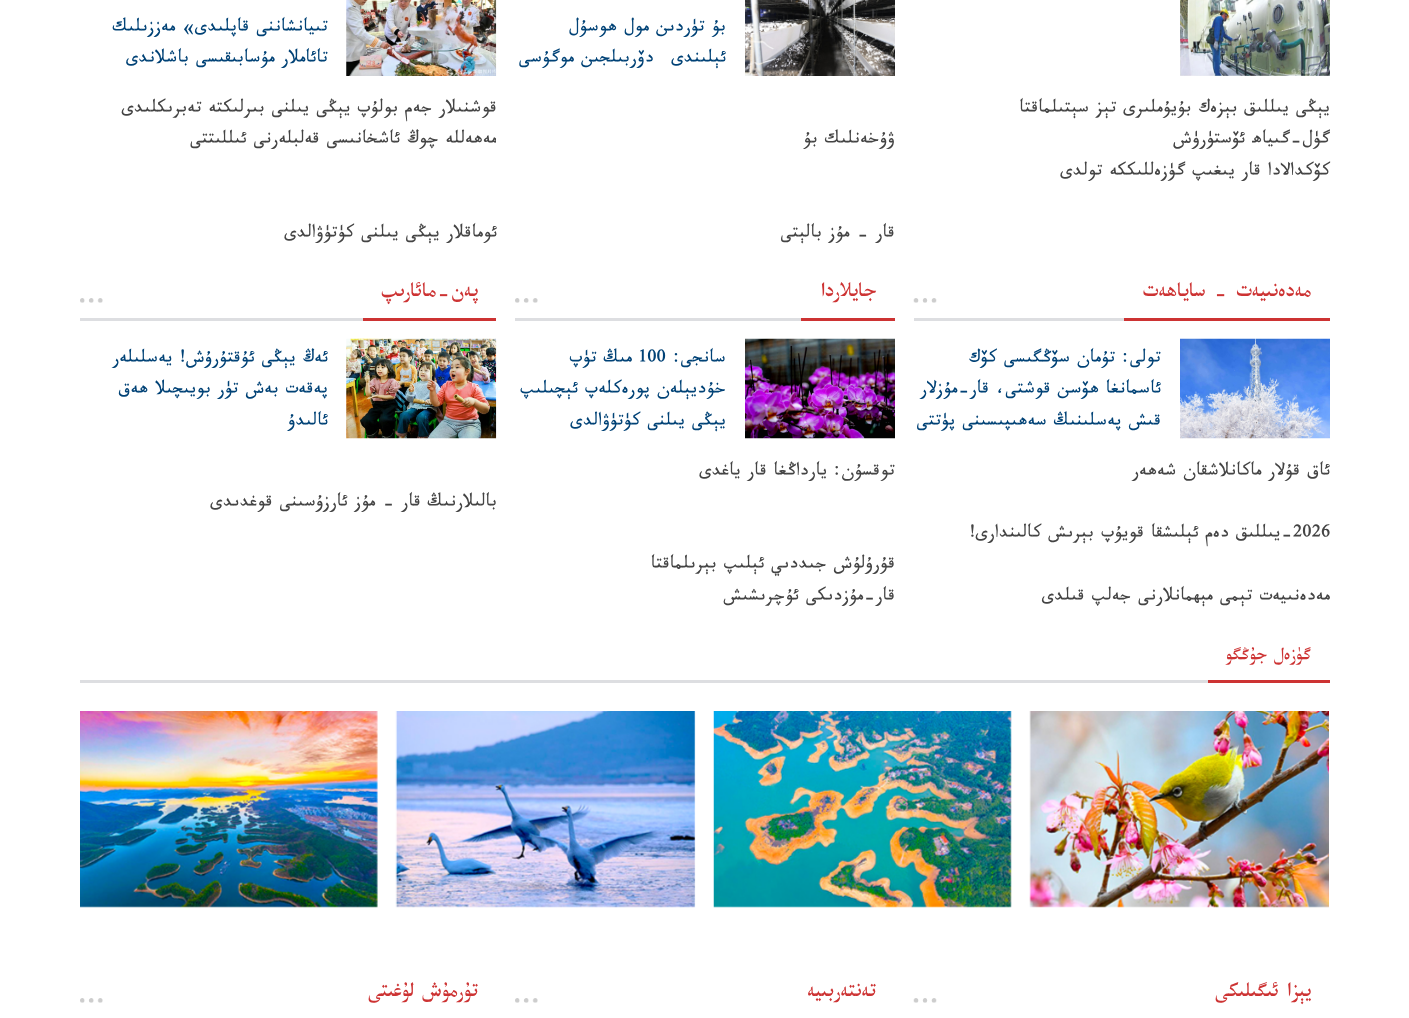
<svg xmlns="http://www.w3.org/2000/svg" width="1409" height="1018">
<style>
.a{font:17.5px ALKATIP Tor;direction:rtl;fill:#444}
.b{font:17.5px ALKATIP Tor;direction:rtl;fill:#004276}
.c{font:20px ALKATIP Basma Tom;direction:rtl;fill:#cd3333}
.d{font:17.5px ALKATIP Tor;fill:#444}
.e{font:17.5px ALKATIP Tor;fill:#004276}
.f{font:17.5px ALKATIP Basma Tom;direction:rtl;fill:#cd3333}
</style>
<defs>
<clipPath id="clip1"><path d="M80 126h416v32H80z"/></clipPath>
</defs>
<rect width="100%" height="100%" fill="#fff"/>
<image href="1.png" x="1180" y="0" width="150" height="76"/>
<image href="2.png" x="745" y="0" width="150" height="76"/>
<image href="3.png" x="346" y="0" width="151" height="76"/>
<path fill="#dddee1" d="M914 318h210v3H914z"/>
<image href="4.png" x="913" y="298" width="24" height="5"/>
<path fill="#cd3333" d="M1124 318h206v3H1124z"/>
<image href="5.png" x="1180" y="338" width="150" height="101"/>
<path fill="#dddee1" d="M515 318h286v3H515z"/>
<image href="6.png" x="515" y="298" width="23" height="5"/>
<path fill="#cd3333" d="M801 318h94v3H801z"/>
<image href="7.png" x="745" y="338" width="150" height="101"/>
<path fill="#dddee1" d="M80 318h283v3H80z"/>
<image href="6.png" x="80" y="298" width="23" height="5"/>
<path fill="#cd3333" d="M363 318h133v3H363z"/>
<image href="8.png" x="346" y="338" width="151" height="101"/>
<path fill="#dddee1" d="M80 680h1128v3H80z"/>
<path fill="#cd3333" d="M1208 680h122v3H1208z"/>
<image href="9.png" x="1029" y="711" width="300" height="197"/>
<image href="10.png" x="713" y="711" width="299" height="197"/>
<image href="11.png" x="395" y="711" width="301" height="197"/>
<image href="12.png" x="80" y="711" width="298" height="197"/>
<image href="4.png" x="913" y="998" width="24" height="5"/>
<image href="6.png" x="515" y="998" width="23" height="5"/>
<image href="6.png" x="80" y="998" width="23" height="5"/>
<text class="a" x="1330" y="113">يېڭى يىللىق بېزەك بۇيۇملىرى تېز سېتىلماقتا</text>
<text class="a" x="1330" y="144">گۈل-گىياھ ئۆستۈرۈش</text>
<text class="a" x="1330" y="176">كۆكدالادا قار يىغىپ گۈزەللىككە تولدى</text>
<text class="b" x="726" y="32">بۇ تۈردىن مول ھوسۇل</text>
<text class="b" x="726" y="63">ئېلىندى</text>
<text class="b" x="654" y="63">دۆربىلجىن موگۇسى</text>
<text class="a" x="895" y="144">ۋۇخەنلىك بۇ</text>
<text class="a" x="895" y="238">قار - مۇز بالېتى</text>
<text class="b" x="328" y="32">تىيانشاننى قاپلىدى» مەززىلىك</text>
<text class="b" x="328" y="63">تائاملار مۇسابىقىسى باشلاندى</text>
<text class="a" x="497" y="113">قوشنىلار جەم بولۇپ يېڭى يىلنى بىرلىكتە تەبرىكلىدى</text>
<g clip-path="url(#clip1)">
<text class="a" x="497" y="144">مەھەللە چوڭ ئاشخانىسى قەلبلەرنى ئىللىتتى</text>
</g>
<text class="a" x="497" y="238">ئوماقلار يېڭى يىلنى كۈتۈۋالدى</text>
<text class="c" x="1311" y="298">مەدەنىيەت - ساياھەت</text>
<text class="b" x="1161" y="363">تولى: تۇمان سۆڭگىسى كۆك</text>
<text class="b" x="1161" y="394">ئاسمانغا ھۆسن قوشتى، قار-مۇزلار</text>
<text class="b" x="1161" y="426">قىش پەسلىنىڭ سەھىپىسىنى پۈتتى</text>
<text class="a" x="1330" y="476">ئاق قۇلار ماكانلاشقان شەھەر</text>
<text class="d" x="1293" y="538">2026</text>
<text class="a" x="1293" y="538">-يىللىق دەم ئېلىشقا قويۇپ بېرىش كالىندارى!</text>
<text class="a" x="1330" y="601">مەدەنىيەت تېمى مېھمانلارنى جەلپ قىلدى</text>
<text class="c" x="876" y="298">جايلاردا</text>
<text class="b" x="726" y="363">سانجى:</text>
<text class="e" x="638" y="363">100</text>
<text class="b" x="632" y="363">مىڭ تۈپ</text>
<text class="b" x="726" y="394">خۇديېلەن پورەكلەپ ئېچىلىپ</text>
<text class="b" x="726" y="426">يېڭى يىلنى كۈتۈۋالدى</text>
<text class="a" x="895" y="476">توقسۇن: يارداڭغا قار ياغدى</text>
<text class="a" x="895" y="569">قۇرۇلۇش جىددىي ئېلىپ بېرىلماقتا</text>
<text class="a" x="895" y="601">قار-مۇزدىكى ئۇچرىشىش</text>
<text class="c" x="478" y="298">پەن-مائارىپ</text>
<text class="b" x="328" y="363">ئەڭ يېڭى ئۇقتۇرۇش! يەسلىلەر</text>
<text class="b" x="328" y="394">پەقەت بەش تۈر بويىچىلا ھەق</text>
<text class="b" x="328" y="426">ئالىدۇ</text>
<text class="a" x="497" y="507">بالىلارنىڭ قار - مۇز ئارزۇسىنى قوغدىدى</text>
<text class="f" x="1311" y="661">گۈزەل جۇڭگو</text>
<text class="c" x="1311" y="998">يېزا ئىگىلىكى</text>
<text class="c" x="876" y="998">تەنتەربىيە</text>
<text class="c" x="478" y="998">تۇرمۇش لۇغىتى</text>
</svg>
